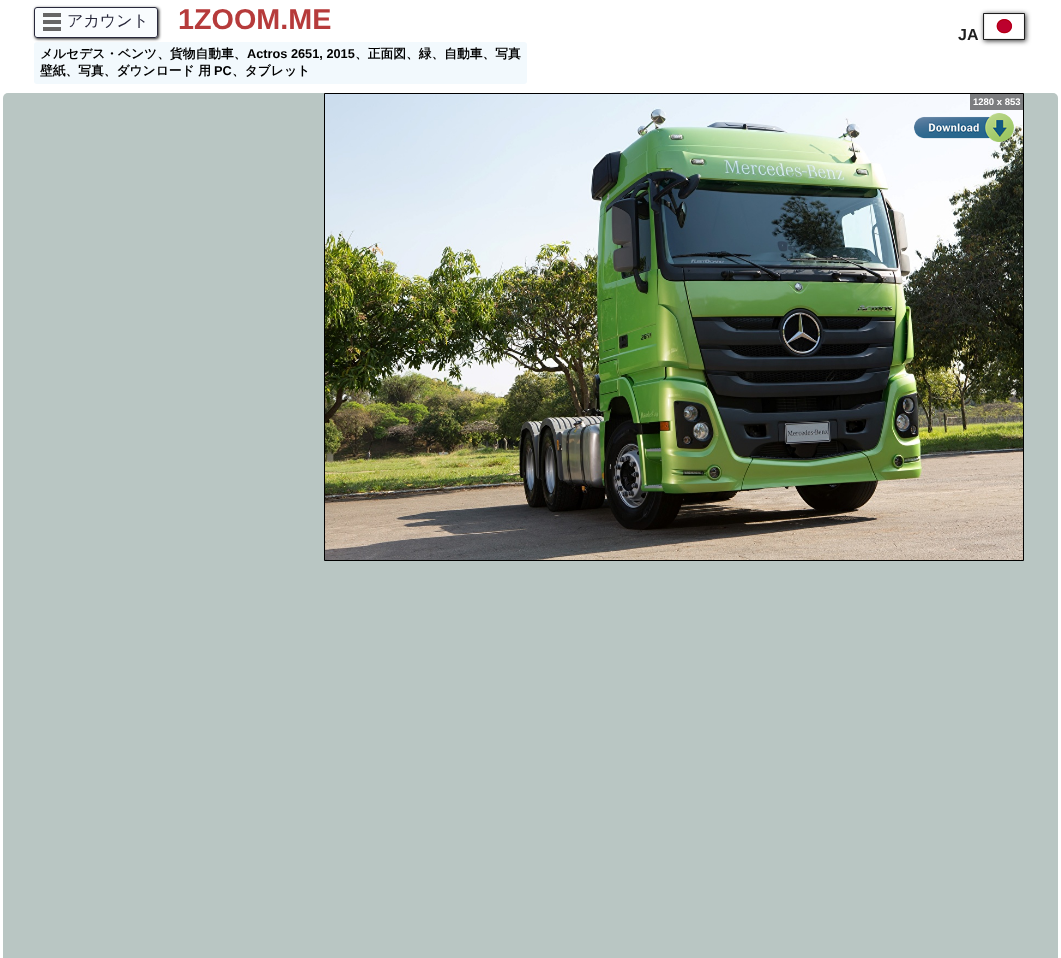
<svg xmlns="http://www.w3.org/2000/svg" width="1061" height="958">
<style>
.a{font:500 16px WenQuanYi Zen Hei;fill:#28283b}
.b{font:bold 28.75px Liberation Sans;fill:#b63b3b}
.c{font:bold 12.75px WenQuanYi Zen Hei;fill:#000}
.d{font:bold 12.75px Liberation Sans;fill:#000}
.e{font:bold 16px Liberation Sans;fill:#1e1e1e}
.f{font:bold 9.5px Liberation Sans;fill:#fff}
</style>
<defs>
<clipPath id="clip1"><path d="M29 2h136v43h-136zm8 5h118c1.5 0 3 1.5 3 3v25c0 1.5-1.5 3-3 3h-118c-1.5 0-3-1.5-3-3v-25c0-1.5 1.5-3 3-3z" clip-rule="evenodd"/></clipPath>
</defs>
<rect width="100%" height="100%" fill="#fff"/>
<rect fill="#f2f9fd" x="34" y="42" width="493" height="42" rx="3"/>
<g clip-path="url(#clip1)">
<rect fill="#000000e6" filter="blur(1.5px)" x="35" y="8" width="124" height="31" rx="3"/>
</g>
<rect fill="#f0f8fd69" stroke="#28283b" x="34.5" y="7.5" width="123" height="30" rx="2.5"/>
<image href="1.png" x="43" y="13" width="18" height="18"/>
<path fill="#000000cc" filter="blur(2.5px)" d="M984 14h42v27H984z"/>
<image href="2.png" x="984" y="14" width="40" height="25"/>
<path fill="none" stroke="#1e1e1e" d="M983.5 13.5h41v26H983.5z"/>
<rect fill="#b9c6c3" x="3" y="93" width="1055" height="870" rx="5"/>
<path fill="none" stroke="#000" d="M324.5 93.5h699v467H324.5z"/>
<image href="3.png" x="325" y="94" width="698" height="466"/>
<path fill="#00000080" d="M970 94h53v16H970z"/>
<image href="4.png" x="913" y="113" width="101" height="29"/>
<text class="a" x="67" y="26">アカウント</text>
<text class="b" x="178" y="29">1ZOOM.ME</text>
<text class="c" x="40" y="58">メルセデス・ベンツ、貨物自動車、</text>
<text class="d" x="247" y="58">Actros 2651, 2015</text>
<text class="c" x="355" y="58">、正面図、緑、自動車、写真</text>
<text class="c" x="40" y="75">壁紙、写真、ダウンロード 用</text>
<text class="d" x="214" y="75">PC</text>
<text class="c" x="232" y="75">、タブレット</text>
<text class="e" x="958" y="40">JA</text>
<text class="f" x="973" y="105">1280 x 853</text>
</svg>
